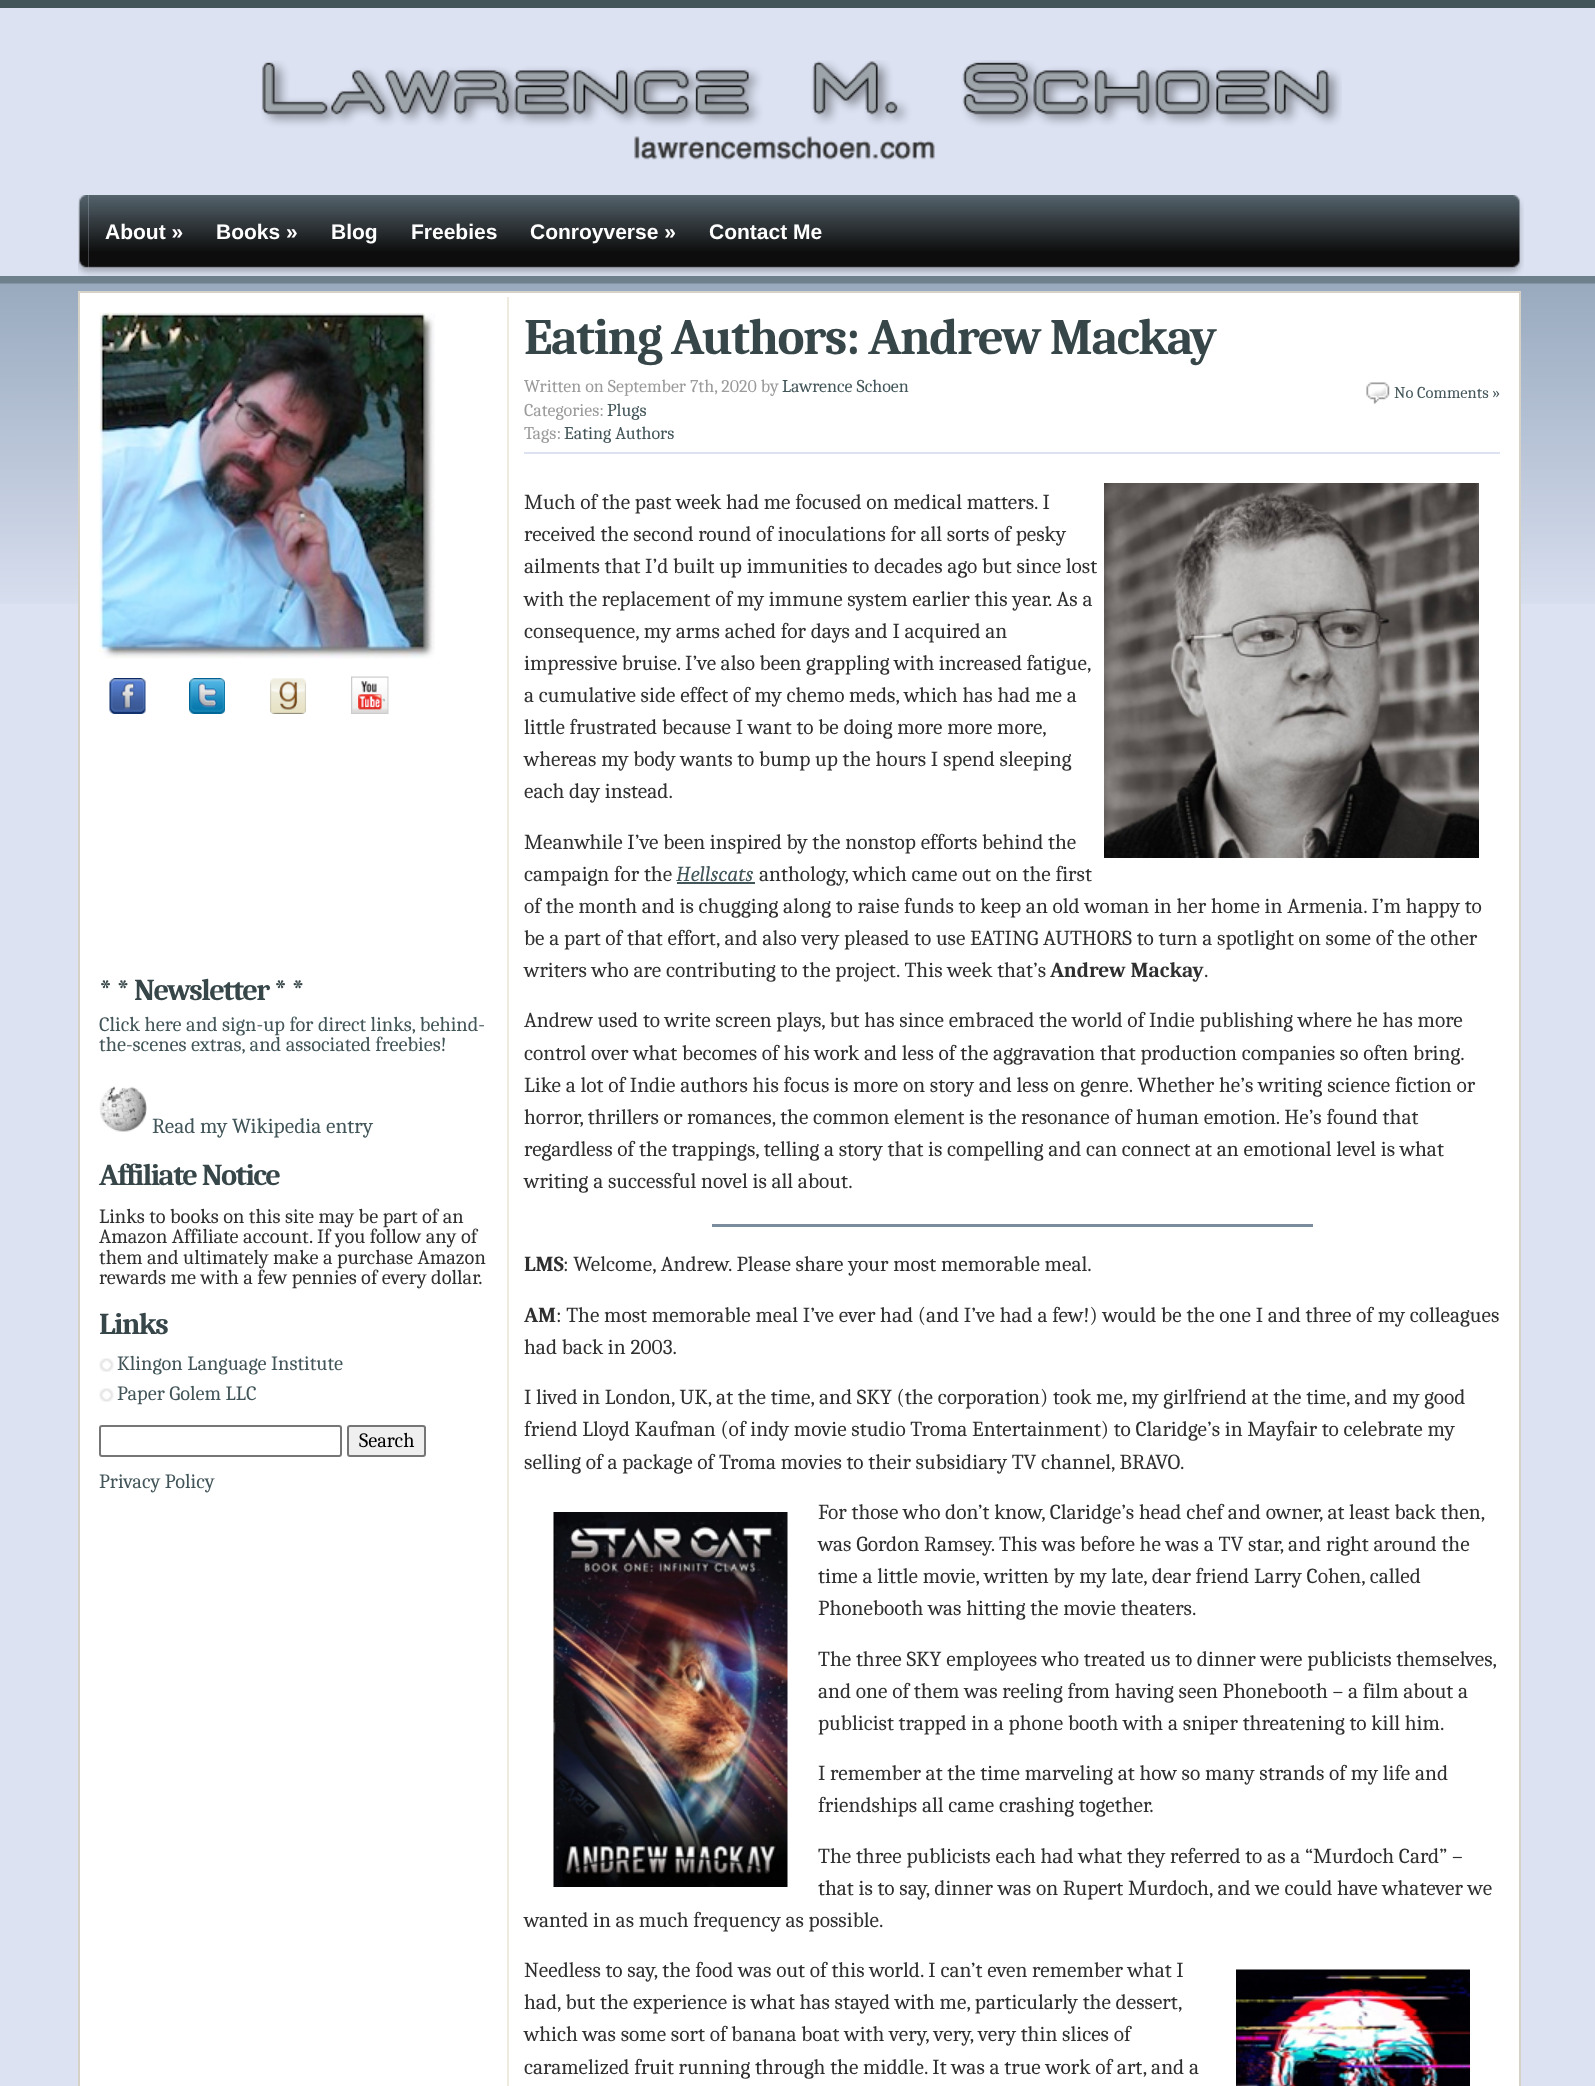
<svg xmlns="http://www.w3.org/2000/svg" width="1595" height="2086">
<style>
.a{font:bold 21px Liberation Sans;fill:#fff}
.b{font:bold 30.5px Caladea;letter-spacing:-1.5px;fill:#374649}
.c{font:20.4px Caladea;fill:#425559}
.d{font:21.4px Caladea;fill:#425559}
.e{font:20.4px Caladea;fill:#303030}
.f{font:20.4px Caladea;fill:#000}
.g{font:bold 51px Caladea;letter-spacing:-1.5px;fill:#374649}
.h{font:18px Caladea;fill:#9b9b9b}
.i{font:18px Caladea;fill:#425559}
.j{font:16.5px Caladea;fill:#425559}
.k{font:21.4px Caladea;fill:#303030}
.l{font:italic 21.4px Caladea;fill:#425559}
.m{font:bold 21.4px Caladea;fill:#303030}
</style>
<rect width="100%" height="100%" fill="#dce2f2"/>
<path fill="#425559" d="M0 0h1595v8H0z"/>
<image href="1.png" x="261" y="60" width="1081" height="100"/>
<image href="2.png" x="78" y="195" width="11" height="81"/>
<image href="3.png" x="88" y="195" width="1436" height="81"/>
<image href="4.png" x="0" y="276" width="1595" height="328"/>
<path fill="#fff" stroke="#d6d2c7" stroke-width="2" d="M79 292h1441v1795H79z"/>
<image href="5.png" x="99" y="312" width="336" height="347"/>
<image href="6.png" x="109" y="678" width="37" height="36"/>
<image href="7.png" x="189" y="678" width="36" height="36"/>
<image href="8.png" x="270" y="678" width="36" height="36"/>
<image href="9.png" x="351" y="676" width="38" height="38"/>
<image href="10.png" x="99" y="1086" width="48" height="46"/>
<image href="11.png" x="99" y="1358" width="15" height="14"/>
<image href="11.png" x="99" y="1388" width="15" height="14"/>
<rect fill="none" stroke="#767676" stroke-width="2" x="100" y="1426" width="241" height="30" rx="2"/>
<rect fill="#efefef" stroke="#767676" stroke-width="2" x="348" y="1426" width="77" height="30" rx="2"/>
<path fill="#eeeae0" d="M507 297h2v1789H507z"/>
<path fill="#dce2f2" d="M524 452h976v2H524z"/>
<image href="12.png" x="1366" y="382" width="24" height="22"/>
<image href="13.png" x="1104" y="483" width="375" height="375"/>
<path fill="#425559" d="M677 882h78v2H677z"/>
<path fill="#7b8d9c" d="M712 1224h601v3H712z"/>
<image href="14.png" x="553" y="1512" width="235" height="375"/>
<image href="15.png" x="1236" y="1969" width="234" height="117"/>
<text class="a" x="105" y="239">About »</text>
<text class="a" x="216" y="239">Books »</text>
<text class="a" x="331" y="239">Blog</text>
<text class="a" x="411" y="239">Freebies</text>
<text class="a" x="530" y="239">Conroyverse »</text>
<text class="a" x="709" y="239">Contact Me</text>
<text class="b" x="99" y="1000">* * Newsletter * *</text>
<text class="c" x="99" y="1031">Click here and sign-up for direct links, behind-</text>
<text class="c" x="99" y="1051">the-scenes extras, and associated freebies!</text>
<text class="d" x="152" y="1133">Read my Wikipedia entry</text>
<text class="b" x="99" y="1185">Affiliate Notice</text>
<text class="e" x="99" y="1223">Links to books on this site may be part of an</text>
<text class="e" x="99" y="1243">Amazon Affiliate account. If you follow any of</text>
<text class="e" x="99" y="1264">them and ultimately make a purchase Amazon</text>
<text class="e" x="99" y="1284">rewards me with a few pennies of every dollar.</text>
<text class="b" x="99" y="1334">Links</text>
<text class="c" x="117" y="1370">Klingon Language Institute</text>
<text class="c" x="117" y="1400">Paper Golem LLC</text>
<text class="f" x="359" y="1447">Search</text>
<text class="c" x="99" y="1488">Privacy Policy</text>
<text class="g" x="524" y="354">Eating Authors: Andrew Mackay</text>
<text class="h" x="524" y="392">Written on September 7th, 2020 by</text>
<text class="i" x="782" y="392">Lawrence Schoen</text>
<text class="j" x="1394" y="398">No Comments »</text>
<text class="h" x="524" y="416">Categories:</text>
<text class="i" x="607" y="416">Plugs</text>
<text class="h" x="524" y="439">Tags:</text>
<text class="i" x="564" y="439">Eating Authors</text>
<text class="k" x="524" y="509">Much of the past week had me focused on medical matters. I</text>
<text class="k" x="524" y="541">received the second round of inoculations for all sorts of pesky</text>
<text class="k" x="524" y="573">ailments that I’d built up immunities to decades ago but since lost</text>
<text class="k" x="524" y="606">with the replacement of my immune system earlier this year. As a</text>
<text class="k" x="524" y="638">consequence, my arms ached for days and I acquired an</text>
<text class="k" x="524" y="670" word-spacing="-0.25">impressive bruise. I’ve also been grappling with increased fatigue,</text>
<text class="k" x="524" y="702">a cumulative side effect of my chemo meds, which has had me a</text>
<text class="k" x="524" y="734">little frustrated because I want to be doing more more more,</text>
<text class="k" x="524" y="766">whereas my body wants to bump up the hours I spend sleeping</text>
<text class="k" x="524" y="798">each day instead.</text>
<text class="k" x="524" y="849">Meanwhile I’ve been inspired by the nonstop efforts behind the</text>
<text class="k" x="524" y="881">campaign for the</text>
<text class="l" x="676" y="881">Hellscats</text>
<text class="k" x="759" y="881">anthology, which came out on the first</text>
<text class="k" x="524" y="913">of the month and is chugging along to raise funds to keep an old woman in her home in Armenia. I’m happy to</text>
<text class="k" x="524" y="945">be a part of that effort, and also very pleased to use EATING AUTHORS to turn a spotlight on some of the other</text>
<text class="k" x="524" y="977">writers who are contributing to the project. This week that’s</text>
<text class="m" x="1050" y="977">Andrew Mackay</text>
<text class="k" x="1204" y="977">.</text>
<text class="k" x="524" y="1027">Andrew used to write screen plays, but has since embraced the world of Indie publishing where he has more</text>
<text class="k" x="524" y="1060">control over what becomes of his work and less of the aggravation that production companies so often bring.</text>
<text class="k" x="524" y="1092">Like a lot of Indie authors his focus is more on story and less on genre. Whether he’s writing science fiction or</text>
<text class="k" x="524" y="1124">horror, thrillers or romances, the common element is the resonance of human emotion. He’s found that</text>
<text class="k" x="524" y="1156">regardless of the trappings, telling a story that is compelling and can connect at an emotional level is what</text>
<text class="k" x="524" y="1188">writing a successful novel is all about.</text>
<text class="m" x="524" y="1271">LMS</text>
<text class="k" x="563" y="1271">: Welcome, Andrew. Please share your most memorable meal.</text>
<text class="m" x="524" y="1322">AM</text>
<text class="k" x="556" y="1322">: The most memorable meal I’ve ever had (and I’ve had a few!) would be the one I and three of my colleagues</text>
<text class="k" x="524" y="1354">had back in 2003.</text>
<text class="k" x="524" y="1404">I lived in London, UK, at the time, and SKY (the corporation) took me, my girlfriend at the time, and my good</text>
<text class="k" x="524" y="1436">friend Lloyd Kaufman (of indy movie studio Troma Entertainment) to Claridge’s in Mayfair to celebrate my</text>
<text class="k" x="524" y="1469">selling of a package of Troma movies to their subsidiary TV channel, BRAVO.</text>
<text class="k" x="818" y="1519">For those who don’t know, Claridge’s head chef and owner, at least back then,</text>
<text class="k" x="818" y="1551">was Gordon Ramsey. This was before he was a TV star, and right around the</text>
<text class="k" x="818" y="1583">time a little movie, written by my late, dear friend Larry Cohen, called</text>
<text class="k" x="818" y="1615">Phonebooth was hitting the movie theaters.</text>
<text class="k" x="818" y="1666">The three SKY employees who treated us to dinner were publicists themselves,</text>
<text class="k" x="818" y="1698">and one of them was reeling from having seen Phonebooth – a film about a</text>
<text class="k" x="818" y="1730">publicist trapped in a phone booth with a sniper threatening to kill him.</text>
<text class="k" x="818" y="1780">I remember at the time marveling at how so many strands of my life and</text>
<text class="k" x="818" y="1812">friendships all came crashing together.</text>
<text class="k" x="818" y="1863">The three publicists each had what they referred to as a “Murdoch Card” –</text>
<text class="k" x="818" y="1895">that is to say, dinner was on Rupert Murdoch, and we could have whatever we</text>
<text class="k" x="524" y="1927">wanted in as much frequency as possible.</text>
<text class="k" x="524" y="1977">Needless to say, the food was out of this world. I can’t even remember what I</text>
<text class="k" x="524" y="2009">had, but the experience is what has stayed with me, particularly the dessert,</text>
<text class="k" x="524" y="2041">which was some sort of banana boat with very, very, very thin slices of</text>
<text class="k" x="524" y="2074">caramelized fruit running through the middle. It was a true work of art, and a</text>
</svg>
